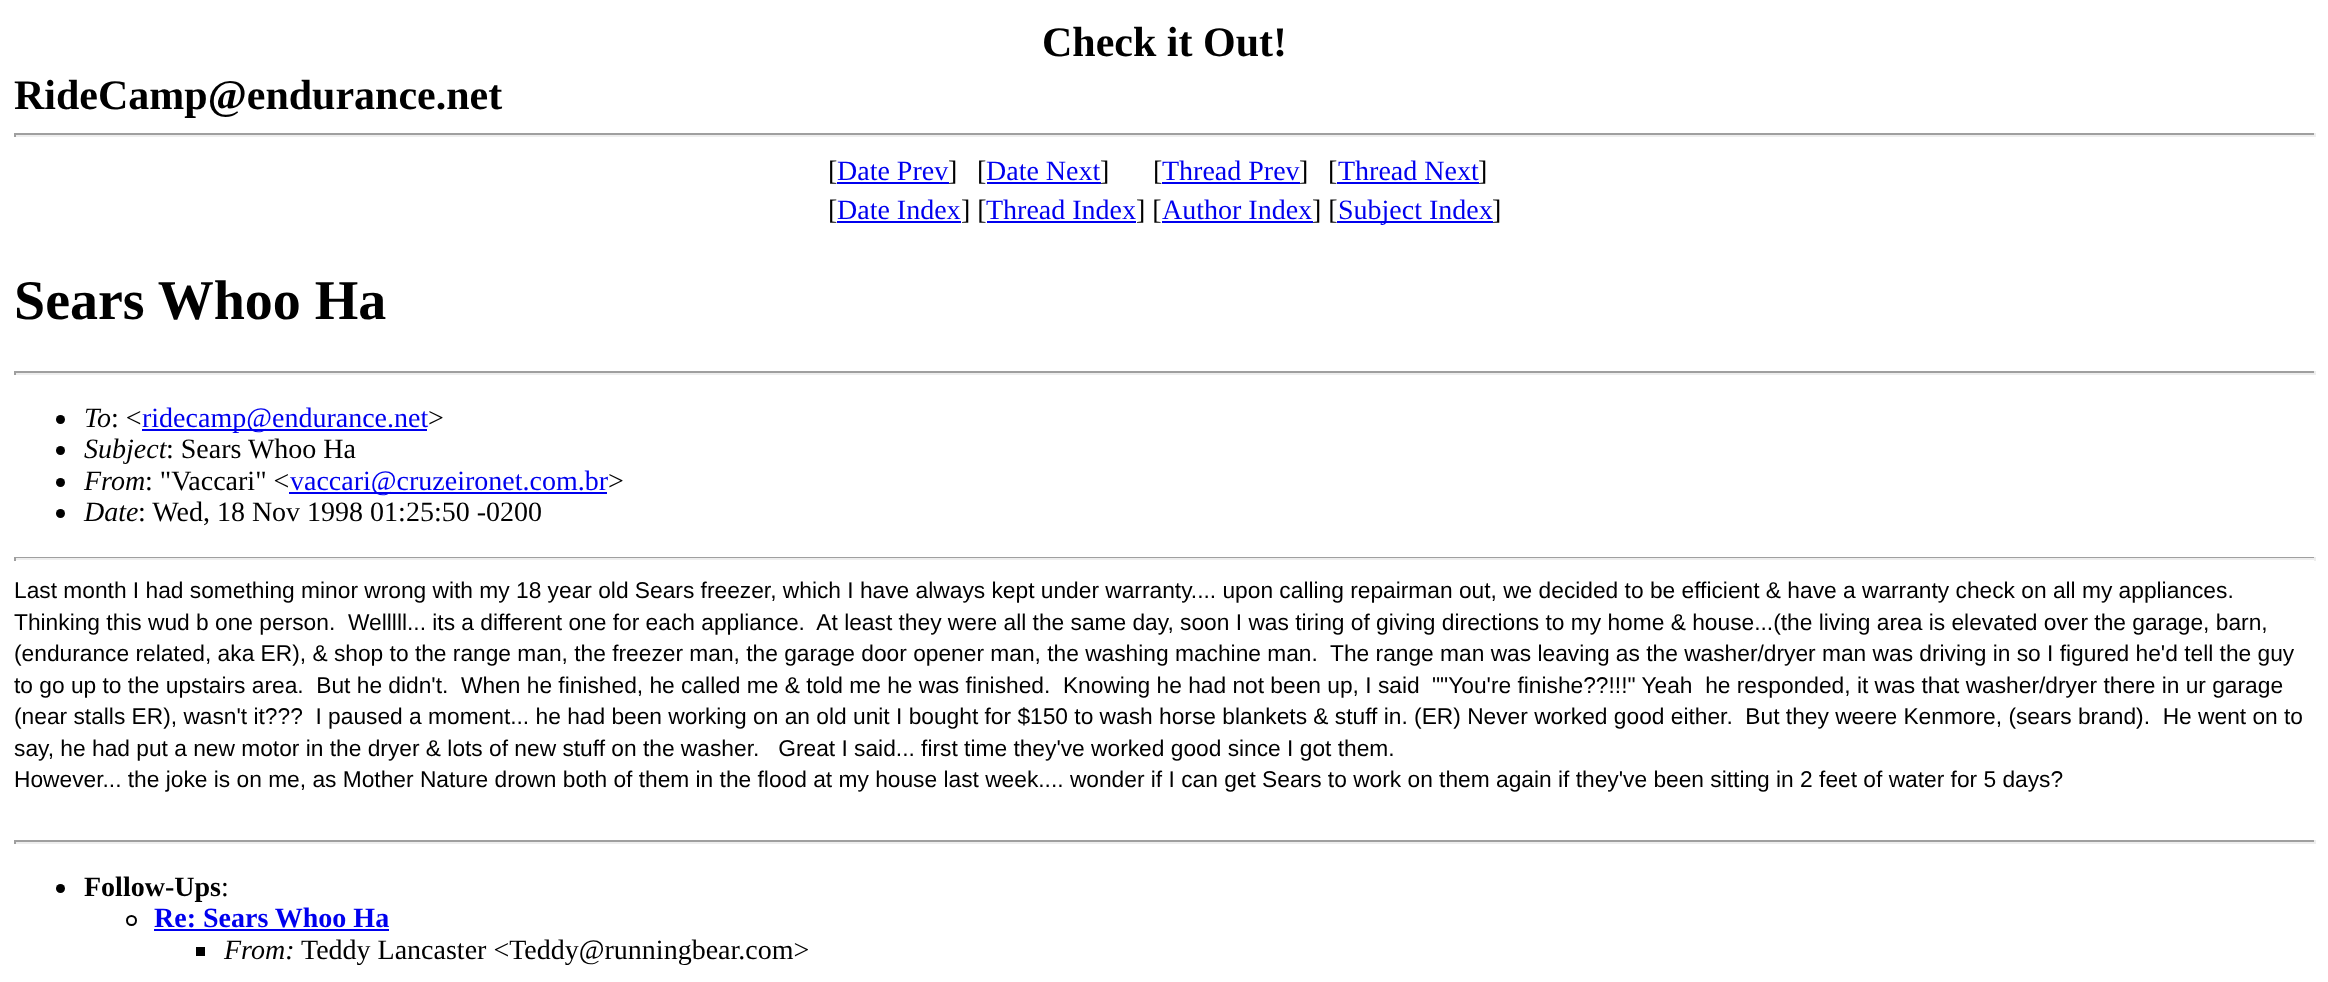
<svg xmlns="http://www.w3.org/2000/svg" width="2328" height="982">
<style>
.a{font:bold 42px Liberation Serif;fill:#000}
.b{font:28px Liberation Serif;fill:#000}
.c{font:28px Liberation Serif;fill:#00e}
.d{font:bold 56px Liberation Serif;fill:#000}
.e{font:italic 28px Liberation Serif;fill:#000}
.f{font:22.75px Liberation Sans;fill:#000}
.g{font:bold 28px Liberation Serif;fill:#000}
.h{font:bold 28px Liberation Serif;fill:#00e}
</style>
<rect width="100%" height="100%" fill="#fff"/>
<path fill="#9f9f9f" d="M14 133h2301v2H14z"/>
<path fill="#eee" d="M2314 133h2v4H2314z"/>
<path fill="#eee" d="M14 135h2301v2H14z"/>
<path fill="#9f9f9f" d="M14 133h2v4H14z"/>
<path fill="#00e" d="M837 182h112v2H837z"/>
<path fill="#00e" d="M987 182h114v2H987z"/>
<path fill="#00e" d="M1162 182h138v2H1162z"/>
<path fill="#00e" d="M1337 182h142v2H1337z"/>
<path fill="#00e" d="M837 221h124v2H837z"/>
<path fill="#00e" d="M987 221h149v2H987z"/>
<path fill="#00e" d="M1162 221h151v2H1162z"/>
<path fill="#00e" d="M1337 221h156v2H1337z"/>
<path fill="#9f9f9f" d="M14 371h2301v2H14z"/>
<path fill="#eee" d="M2314 371h2v4H2314z"/>
<path fill="#eee" d="M14 373h2301v2H14z"/>
<path fill="#9f9f9f" d="M14 371h2v4H14z"/>
<circle fill="#000" cx="60.5" cy="419.5" r="4.5"/>
<path fill="#00e" d="M142 429h285v2H142z"/>
<circle fill="#000" cx="60.5" cy="450.5" r="4.5"/>
<circle fill="#000" cx="60.5" cy="482.5" r="4.5"/>
<path fill="#00e" d="M289 492h318v2H289z"/>
<circle fill="#000" cx="60.5" cy="513.5" r="4.5"/>
<path fill="#9f9f9f" d="M14 557h2301v1H14z"/>
<path fill="#eee" d="M2314 557h2v4H2314z"/>
<path fill="#eee" d="M14 558h2301v2H14z"/>
<path fill="#9f9f9f" d="M14 557h2v4H14z"/>
<path fill="#9f9f9f" d="M14 840h2301v2H14z"/>
<path fill="#eee" d="M2314 840h2v4H2314z"/>
<path fill="#eee" d="M14 842h2301v2H14z"/>
<path fill="#9f9f9f" d="M14 840h2v4H14z"/>
<circle fill="#000" cx="60.5" cy="888.5" r="4.5"/>
<circle fill="none" stroke="#000" stroke-width="2" cx="131.5" cy="920.5" r="4.5"/>
<path fill="#00e" d="M154 929h235v2H154z"/>
<path fill="#000" d="M196 947h9v9H196z"/>
<text class="a" x="1042" y="56">Check it Out!</text>
<text class="a" x="14" y="109">RideCamp@endurance.net</text>
<text class="b" x="828" y="180">[</text>
<text class="c" x="837" y="180">Date Prev</text>
<text class="b" x="948" y="180">]</text>
<text class="b" x="977" y="180">[</text>
<text class="c" x="986" y="180">Date Next</text>
<text class="b" x="1100" y="180">]</text>
<text class="b" x="1153" y="180">[</text>
<text class="c" x="1162" y="180">Thread Prev</text>
<text class="b" x="1299" y="180">]</text>
<text class="b" x="1328" y="180">[</text>
<text class="c" x="1338" y="180">Thread Next</text>
<text class="b" x="1478" y="180">]</text>
<text class="b" x="828" y="219">[</text>
<text class="c" x="837" y="219">Date Index</text>
<text class="b" x="961" y="219">] [</text>
<text class="c" x="986" y="219">Thread Index</text>
<text class="b" x="1136" y="219">] [</text>
<text class="c" x="1162" y="219">Author Index</text>
<text class="b" x="1312" y="219">] [</text>
<text class="c" x="1338" y="219">Subject Index</text>
<text class="b" x="1492" y="219">]</text>
<text class="d" x="14" y="319">Sears Whoo Ha</text>
<text class="e" x="84" y="427">To</text>
<text class="b" x="111" y="427">: &lt;</text>
<text class="c" x="142" y="427">ridecamp@endurance.net</text>
<text class="b" x="428" y="427">&gt;</text>
<text class="e" x="84" y="458">Subject</text>
<text class="b" x="166" y="458">: Sears Whoo Ha</text>
<text class="e" x="84" y="490">From</text>
<text class="b" x="145" y="490">: "Vaccari" &lt;</text>
<text class="c" x="290" y="490">vaccari@cruzeironet.com.br</text>
<text class="b" x="608" y="490">&gt;</text>
<text class="e" x="84" y="521">Date</text>
<text class="b" x="138" y="521">: Wed, 18 Nov 1998 01:25:50 -0200</text>
<text class="f" x="14" y="598">Last month I had something minor wrong with my 18 year old Sears freezer, which I have always kept under warranty.... upon calling repairman out, we decided to be efficient &amp; have a warranty check on all my appliances.</text>
<text class="f" x="14" y="630">Thinking this wud b one person.</text>
<text class="f" xml:space="preserve" x="348" y="630">Welllll... its a different one for each appliance.  At least they were all the same day, soon I was tiring of giving directions to my home &amp; house...(the living area is elevated over the garage, barn,</text>
<text class="f" xml:space="preserve" x="14" y="661">(endurance related, aka ER), &amp; shop to the range man, the freezer man, the garage door opener man, the washing machine man.  The range man was leaving as the washer/dryer man was driving in so I figured he'd tell the guy</text>
<text class="f" xml:space="preserve" x="14" y="693">to go up to the upstairs area.  But he didn't.  When he finished, he called me &amp; told me he was finished.  Knowing he had not been up, I said</text>
<text class="f" xml:space="preserve" x="1432" y="693">""You're finishe??!!!" Yeah  he responded, it was that washer/dryer there in ur garage</text>
<text class="f" xml:space="preserve" x="14" y="724">(near stalls ER), wasn't it???  I paused a moment... he had been working on an old unit I bought for $150 to wash horse blankets &amp; stuff in. (ER) Never worked good either.  But they weere Kenmore, (sears brand).  He went on to</text>
<text class="f" xml:space="preserve" x="14" y="756">say, he had put a new motor in the dryer &amp; lots of new stuff on the washer.   Great I said... first time they've worked good since I got them.</text>
<text class="f" x="14" y="787">However... the joke is on me, as Mother Nature drown both of them in the flood at my house last week.... wonder if I can get Sears to work on them again if they've been sitting in 2 feet of water for 5 days?</text>
<text class="g" x="84" y="896">Follow-Ups</text>
<text class="b" x="221" y="896">:</text>
<text class="h" x="154" y="927">Re: Sears Whoo Ha</text>
<text class="e" x="224" y="959">From:</text>
<text class="b" x="301" y="959">Teddy Lancaster &lt;Teddy@runningbear.com&gt;</text>
</svg>
